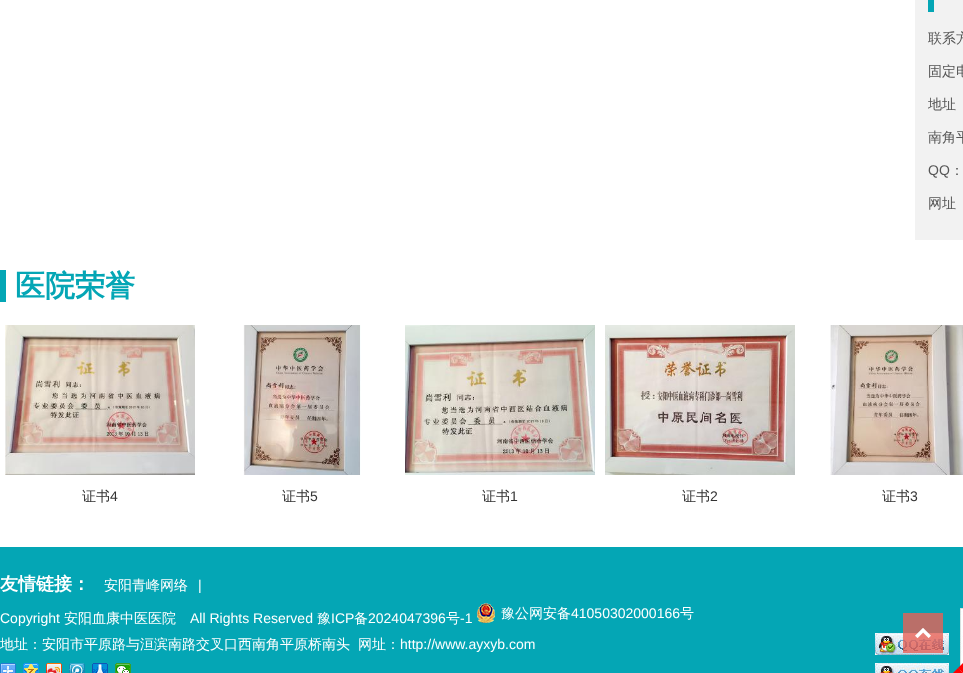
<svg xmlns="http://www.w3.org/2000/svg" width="963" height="673">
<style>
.a{font:500 14px WenQuanYi Zen Hei;fill:#555}
.b{font:14px Liberation Sans;fill:#555}
.c{font:bold 30px WenQuanYi Zen Hei;fill:#04a6b5}
.d{font:500 14px WenQuanYi Zen Hei;fill:#333}
.e{font:14px Liberation Sans;fill:#333}
.f{font:bold 18px WenQuanYi Zen Hei;fill:#fff}
.g{font:500 14px WenQuanYi Zen Hei;fill:#fff}
.h{font:14px Liberation Sans;fill:#fff}
</style>
<rect width="100%" height="100%" fill="#fff"/>
<path fill="#f2f2f2" d="M915 0h48v240H915z"/>
<path fill="#04a6b5" d="M928 0h6v12H928z"/>
<path fill="#04a6b5" d="M0 270h6v32H0z"/>
<image href="1.png" x="5" y="325" width="190" height="150"/>
<image href="2.png" x="243" y="325" width="118" height="150"/>
<image href="3.png" x="405" y="325" width="190" height="150"/>
<image href="4.png" x="605" y="325" width="190" height="150"/>
<image href="5.png" x="830" y="325" width="133" height="150"/>
<path fill="#04a6b5" d="M0 547h963v126H0z"/>
<image href="6.png" x="477" y="603" width="18" height="20"/>
<image href="7.png" x="0" y="663" width="16" height="10"/>
<image href="8.png" x="23" y="663" width="16" height="10"/>
<image href="9.png" x="46" y="663" width="16" height="10"/>
<image href="10.png" x="69" y="663" width="16" height="10"/>
<image href="11.png" x="92" y="663" width="16" height="10"/>
<image href="12.png" x="115" y="663" width="16" height="10"/>
<image href="13.png" x="875" y="633" width="74" height="22"/>
<image href="14.png" x="960" y="608" width="3" height="65"/>
<image href="15.png" x="875" y="663" width="74" height="10"/>
<path fill="#e86256cc" d="M903 613h40v40H903z"/>
<image href="16.png" x="915" y="628" width="16" height="11"/>
<path fill="#f00" d="M963 663v10l-5-5z"/>
<path fill="#f00" d="M963 673h-10l5-5z"/>
<text class="a" x="928" y="43">联系方</text>
<text class="a" x="928" y="76">固定电</text>
<text class="a" x="928" y="109">地址</text>
<text class="a" x="928" y="142">南角平</text>
<text class="b" x="928" y="175">QQ</text>
<text class="a" x="950" y="175">：</text>
<text class="a" x="928" y="208">网址</text>
<text class="c" x="15" y="296">医院荣誉</text>
<text class="d" x="82" y="501">证书</text>
<text class="e" x="110" y="501">4</text>
<text class="d" x="282" y="501">证书</text>
<text class="e" x="310" y="501">5</text>
<text class="d" x="482" y="501">证书</text>
<text class="e" x="510" y="501">1</text>
<text class="d" x="682" y="501">证书</text>
<text class="e" x="710" y="501">2</text>
<text class="d" x="882" y="501">证书</text>
<text class="e" x="910" y="501">3</text>
<text class="f" x="0" y="590">友情链接：</text>
<text class="g" x="104" y="590">安阳青峰网络</text>
<text class="h" x="198" y="590">|</text>
<text class="h" x="0" y="623">Copyright</text>
<text class="g" x="64" y="623">安阳血康中医医院</text>
<text class="h" x="190" y="623">All Rights Reserved</text>
<text class="g" x="317" y="623">豫</text>
<text class="h" x="331" y="623">ICP</text>
<text class="g" x="354" y="623">备</text>
<text class="h" x="368" y="623">2024047396</text>
<text class="g" x="446" y="623">号</text>
<text class="h" x="460" y="623">-1</text>
<text class="g" x="501" y="618">豫公网安备</text>
<text class="h" x="571" y="618">41050302000166</text>
<text class="g" x="680" y="618">号</text>
<text class="g" x="0" y="649">地址：安阳市平原路与洹滨南路交叉口西南角平原桥南头</text>
<text class="g" x="358" y="649">网址：</text>
<text class="h" x="400" y="649">http://www.ayxyb.com</text>
</svg>
